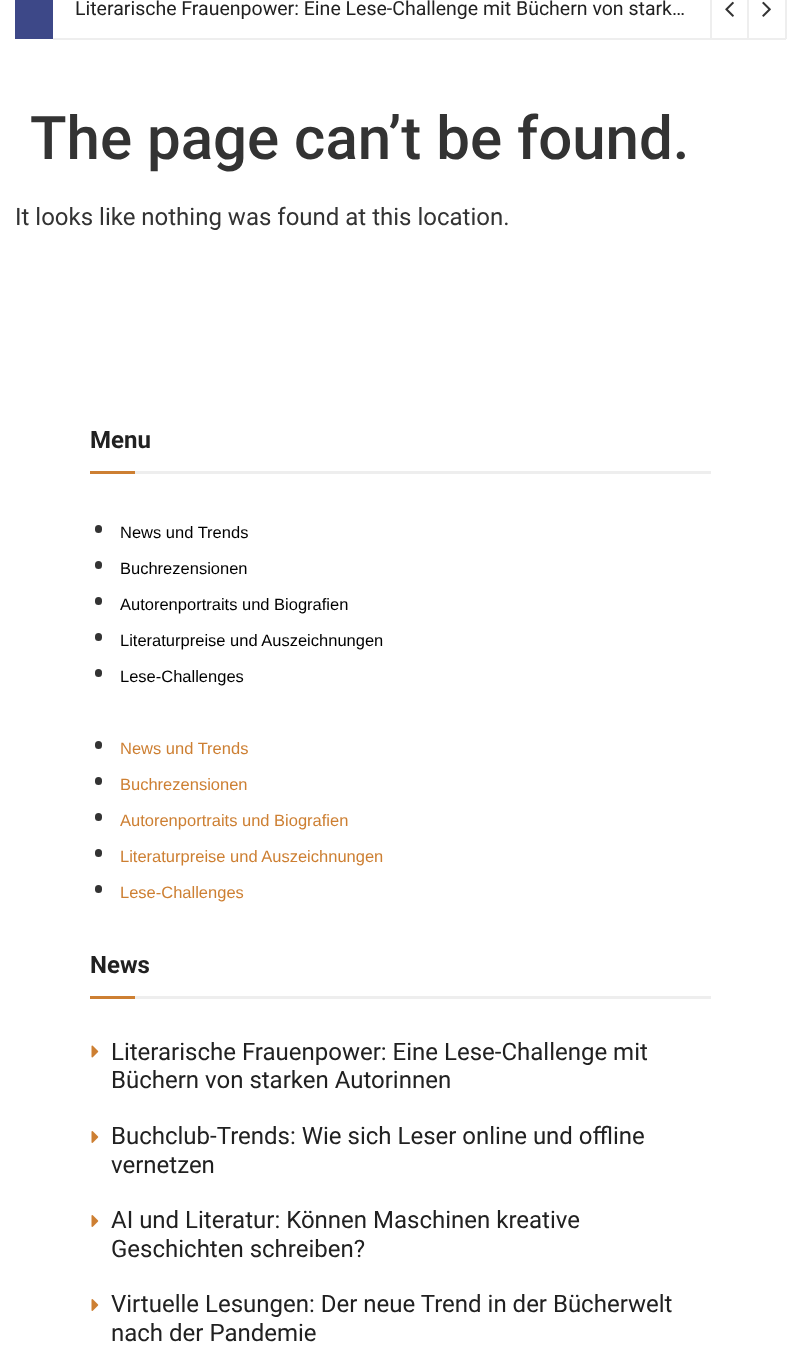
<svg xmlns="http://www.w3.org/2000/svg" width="800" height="1347">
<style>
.a{font:19.5px Roboto;fill:#212121}
.b{font:500 60px Roboto;fill:#333}
.c{font:24px Roboto;fill:#333}
.d{font:bold 24px Roboto;fill:#212121}
.e{font:16.5px Liberation Sans;fill:#000}
.f{font:16.5px Liberation Sans;fill:#cd7f32}
.g{font:24px Roboto;fill:#212121}
</style>
<rect width="100%" height="100%" fill="#fff"/>
<path fill="#3d4888" d="M15 0h38v39H15z"/>
<path fill="#eee" d="M785 0h2v39H785z"/>
<path fill="#eee" d="M53 38h733v2H53z"/>
<path fill="#eee" d="M710 0h2v38H710z"/>
<image href="1.png" x="725" y="1" width="9" height="16"/>
<path fill="#eee" d="M747 0h2v38H747z"/>
<image href="2.png" x="762" y="1" width="9" height="16"/>
<path fill="#eee" d="M135 471h576v3H135z"/>
<path fill="#cd7f32" d="M90 471h45v3H90z"/>
<rect fill="#333" x="95" y="525" width="7" height="8" rx="3.5"/>
<rect fill="#333" x="95" y="561" width="7" height="8" rx="3.5"/>
<rect fill="#333" x="95" y="597" width="7" height="8" rx="3.5"/>
<rect fill="#333" x="95" y="633" width="7" height="8" rx="3.5"/>
<rect fill="#333" x="95" y="669" width="7" height="8" rx="3.5"/>
<rect fill="#333" x="95" y="741" width="7" height="8" rx="3.5"/>
<rect fill="#333" x="95" y="777" width="7" height="8" rx="3.5"/>
<rect fill="#333" x="95" y="813" width="7" height="8" rx="3.5"/>
<rect fill="#333" x="95" y="849" width="7" height="8" rx="3.5"/>
<rect fill="#333" x="95" y="885" width="7" height="8" rx="3.5"/>
<path fill="#eee" d="M135 996h576v3H135z"/>
<path fill="#cd7f32" d="M90 996h45v3H90z"/>
<image href="3.png" x="91" y="1045" width="8" height="13"/>
<image href="4.png" x="91" y="1131" width="8" height="12"/>
<image href="4.png" x="91" y="1215" width="8" height="12"/>
<image href="4.png" x="91" y="1299" width="8" height="12"/>
<text class="a" x="75" y="15">Literarische Frauenpower: Eine Lese-Challenge mit Büchern von stark…</text>
<text class="b" x="30" y="159">The page can’t be found.</text>
<text class="c" x="15" y="225">It looks like nothing was found at this location.</text>
<text class="d" x="90" y="448">Menu</text>
<text class="e" x="120" y="538">News und Trends</text>
<text class="e" x="120" y="574">Buchrezensionen</text>
<text class="e" x="120" y="610">Autorenportraits und Biografien</text>
<text class="e" x="120" y="646">Literaturpreise und Auszeichnungen</text>
<text class="e" x="120" y="682">Lese-Challenges</text>
<text class="f" x="120" y="754">News und Trends</text>
<text class="f" x="120" y="790">Buchrezensionen</text>
<text class="f" x="120" y="826">Autorenportraits und Biografien</text>
<text class="f" x="120" y="862">Literaturpreise und Auszeichnungen</text>
<text class="f" x="120" y="898">Lese-Challenges</text>
<text class="d" x="90" y="973">News</text>
<text class="g" x="111" y="1060">Literarische Frauenpower: Eine Lese-Challenge mit</text>
<text class="g" x="111" y="1088">Büchern von starken Autorinnen</text>
<text class="g" x="111" y="1144">Buchclub-Trends: Wie sich Leser online und offline</text>
<text class="g" x="111" y="1173">vernetzen</text>
<text class="g" x="111" y="1228">AI und Literatur: Können Maschinen kreative</text>
<text class="g" x="111" y="1257">Geschichten schreiben?</text>
<text class="g" x="111" y="1312">Virtuelle Lesungen: Der neue Trend in der Bücherwelt</text>
<text class="g" x="111" y="1341">nach der Pandemie</text>
</svg>
